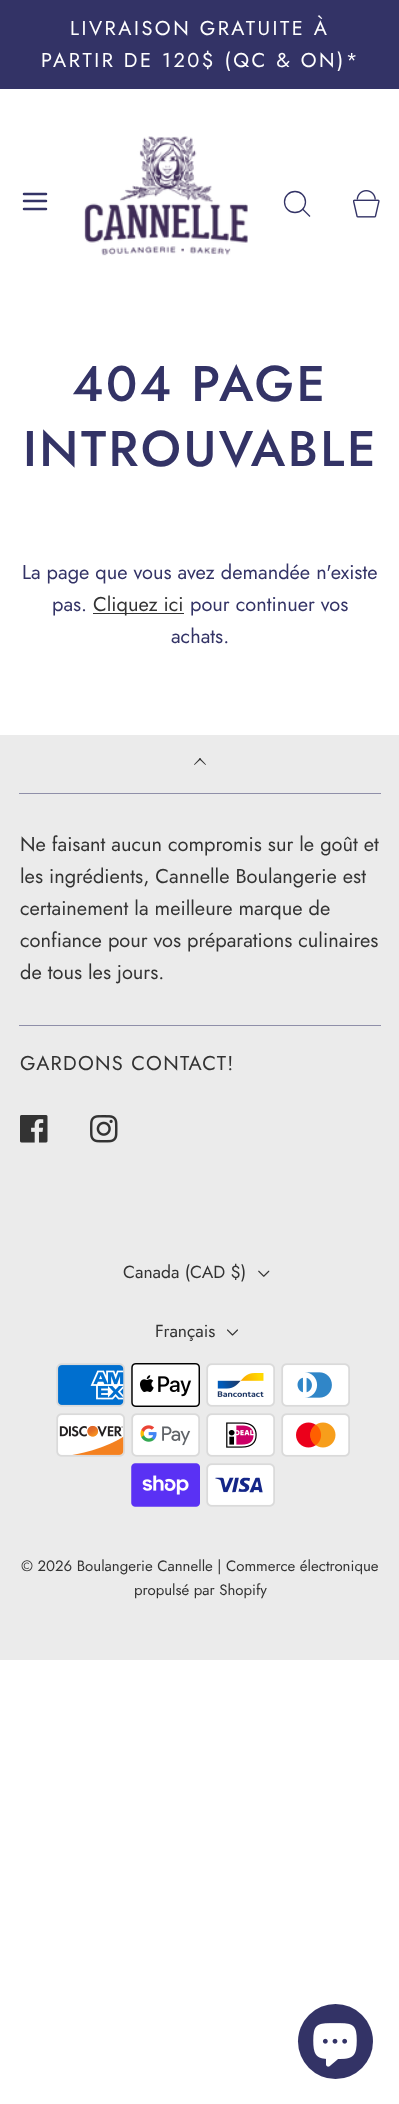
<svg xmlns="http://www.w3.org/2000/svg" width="399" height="2104">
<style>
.a{font:20px Jost;letter-spacing:2.5px;fill:#fff}
.b{font:500 50px Jost;letter-spacing:2.5px;fill:#336}
.c{font:20px Jost;fill:#336}
.d{font:20px Jost;fill:#333}
.e{font:20px Jost;letter-spacing:1.25px;fill:#333}
.f{font:17.5px Jost;fill:#333}
.g{font:15px Jost;fill:#333}
</style>
<rect width="100%" height="100%" fill="#fff"/>
<path fill="#336" d="M0 0h399v89H0z"/>
<path fill="none" stroke="#336" stroke-width="2.5" stroke-linecap="round" stroke-linejoin="round" d="M24 201h22m-22-7h22m-22 15h22"/>
<image href="1.png" x="84" y="136" width="164" height="120"/>
<circle fill="none" stroke="#336" stroke-width="1.3" cx="295" cy="202" r="10.5"/>
<path fill="none" stroke="#336" stroke-width="1.3" d="M302.5 209l7.5 7.5"/>
<image href="2.png" x="353" y="190" width="27" height="28"/>
<path fill="#333" d="M93 613h91v1H93z"/>
<path fill="#ebebeb" d="M0 735h399v925H0z"/>
<path fill="#333" d="M194.5 765l-.5-.5l6-6.5l1 1z"/>
<path fill="#333" d="M205.5 765l-6.5-6l1-1l6 6.5z"/>
<path fill="#8f8fa9" d="M19 793h362v1H19z"/>
<path fill="#8f8fa9" d="M19 1025h362v1H19z"/>
<image href="3.png" x="20" y="1115" width="28" height="28"/>
<image href="4.png" x="90" y="1115" width="28" height="28"/>
<image href="5.png" x="258" y="1270" width="12" height="7"/>
<image href="6.png" x="227" y="1329" width="11" height="7"/>
<image href="7.png" x="56" y="1363" width="69" height="44"/>
<image href="8.png" x="131" y="1363" width="69" height="44"/>
<image href="9.png" x="206" y="1363" width="69" height="44"/>
<image href="10.png" x="281" y="1363" width="69" height="44"/>
<image href="11.png" x="56" y="1413" width="69" height="44"/>
<image href="12.png" x="131" y="1413" width="69" height="44"/>
<image href="13.png" x="206" y="1413" width="69" height="44"/>
<image href="14.png" x="281" y="1413" width="69" height="44"/>
<image href="15.png" x="131" y="1463" width="69" height="44"/>
<image href="16.png" x="206" y="1463" width="69" height="44"/>
<circle fill="#336" cx="335.5" cy="2041.5" r="37.5"/>
<image href="17.png" x="313" y="2023" width="44" height="44"/>
<text class="a" x="70" y="35">LIVRAISON GRATUITE À</text>
<text class="a" x="41" y="67">PARTIR DE 120$ (QC &amp; ON)*</text>
<text class="b" x="72" y="401">404 PAGE</text>
<text class="b" x="23" y="466">INTROUVABLE</text>
<text class="c" x="22" y="579">La page que vous avez demandée n'existe</text>
<text class="c" x="52" y="611">pas.</text>
<text class="d" x="93" y="611">Cliquez ici</text>
<text class="c" x="190" y="611">pour continuer vos</text>
<text class="c" x="171" y="643">achats.</text>
<text class="d" x="20" y="851">Ne faisant aucun compromis sur le goût et</text>
<text class="d" x="20" y="883">les ingrédients, Cannelle Boulangerie est</text>
<text class="d" x="20" y="915">certainement la meilleure marque de</text>
<text class="d" x="20" y="947">confiance pour vos préparations culinaires</text>
<text class="d" x="20" y="979">de tous les jours.</text>
<text class="e" x="20" y="1070">GARDONS CONTACT!</text>
<text class="f" x="123" y="1278">Canada (CAD $)</text>
<text class="f" x="155" y="1337">Français</text>
<text class="g" x="21" y="1571">© 2026 Boulangerie Cannelle | Commerce électronique</text>
<text class="g" x="134" y="1595">propulsé par Shopify</text>
</svg>
